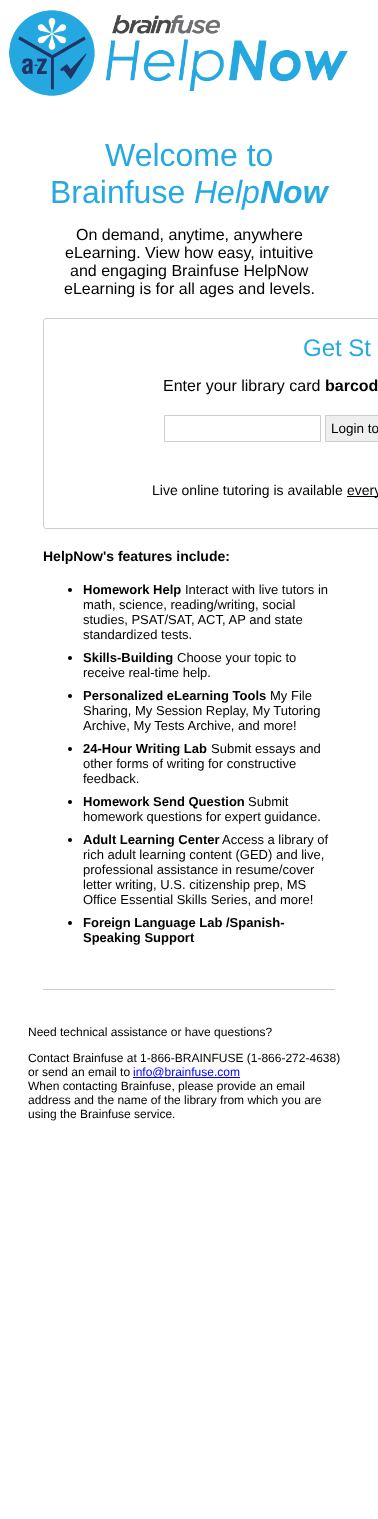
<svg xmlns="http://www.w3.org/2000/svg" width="378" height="1519">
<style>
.a{font:32px Liberation Sans;fill:#26a9e0}
.b{font:italic 32px Liberation Sans;fill:#26a9e0}
.c{font:italic bold 32px Liberation Sans;fill:#26a9e0}
.d{font:16px Liberation Sans;fill:#000}
.e{font:24px Liberation Sans;fill:#26a9e0}
.f{font:bold 16px Liberation Sans;fill:#000}
.g{font:13.5px Liberation Sans;fill:#000}
.h{font:14px Liberation Sans;fill:#000}
.i{font:bold 14px Liberation Sans;fill:#000}
.j{font:bold 13px Liberation Sans;fill:#000}
.k{font:13px Liberation Sans;fill:#000}
.l{font:12px Liberation Sans;fill:#000}
.m{font:12px Liberation Sans;fill:#00f}
</style>
<rect width="100%" height="100%" fill="#fff"/>
<image href="1.png" x="9" y="10" width="339" height="86"/>
<path fill="#cecece" d="M43 989h292v1H43z"/>
<rect fill="none" stroke="#cecece" x="43.5" y="318.5" width="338" height="210" rx="2.5"/>
<path fill="none" stroke="#cecece" d="M164.5 415.5h156v26H164.5z"/>
<path fill="#efefef" stroke="#cecece" d="M325.5 415.5h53v26H325.5z"/>
<path fill="#000" d="M347 496h31v1H347z"/>
<circle fill="#000" cx="70" cy="590" r="2"/>
<circle fill="#000" cx="70" cy="658" r="2"/>
<circle fill="#000" cx="70" cy="696" r="2"/>
<circle fill="#000" cx="70" cy="749" r="2"/>
<circle fill="#000" cx="70" cy="802" r="2"/>
<circle fill="#000" cx="70" cy="840" r="2"/>
<circle fill="#000" cx="70" cy="923" r="2"/>
<path fill="#00f" d="M133 1077h107v1H133z"/>
<text class="a" x="105" y="166">Welcome to</text>
<text class="a" x="50" y="203">Brainfuse</text>
<text class="b" x="194" y="203">Help</text>
<text class="c" x="260" y="203">Now</text>
<text class="d" x="76" y="240">On demand, anytime, anywhere</text>
<text class="d" x="65" y="258">eLearning. View how easy, intuitive</text>
<text class="d" x="70" y="276">and engaging Brainfuse HelpNow</text>
<text class="d" x="64" y="294">eLearning is for all ages and levels.</text>
<text class="e" x="303" y="356">Get St</text>
<text class="d" x="163" y="391">Enter your library card</text>
<text class="f" x="325" y="391">barcod</text>
<text class="g" x="331" y="433">Login to</text>
<text class="h" x="152" y="495">Live online tutoring is available</text>
<text class="h" x="347" y="495">every</text>
<text class="i" x="43" y="561">HelpNow's features include:</text>
<text class="j" x="83" y="594">Homework Help</text>
<text class="k" x="185" y="594">Interact with live tutors in</text>
<text class="k" x="83" y="609">math, science, reading/writing, social</text>
<text class="k" x="83" y="624">studies, PSAT/SAT, ACT, AP and state</text>
<text class="k" x="83" y="639">standardized tests.</text>
<text class="j" x="83" y="662">Skills-Building</text>
<text class="k" x="177" y="662">Choose your topic to</text>
<text class="k" x="83" y="677">receive real-time help.</text>
<text class="j" x="83" y="700">Personalized eLearning Tools</text>
<text class="k" x="270" y="700">My File</text>
<text class="k" x="83" y="715">Sharing, My Session Replay, My Tutoring</text>
<text class="k" x="83" y="730">Archive, My Tests Archive, and more!</text>
<text class="j" x="83" y="753">24-Hour Writing Lab</text>
<text class="k" x="211" y="753">Submit essays and</text>
<text class="k" x="83" y="768">other forms of writing for constructive</text>
<text class="k" x="83" y="783">feedback.</text>
<text class="j" x="83" y="806">Homework Send Question</text>
<text class="k" x="248" y="806">Submit</text>
<text class="k" x="83" y="821">homework questions for expert guidance.</text>
<text class="j" x="83" y="844">Adult Learning Center</text>
<text class="k" x="222" y="844">Access a library of</text>
<text class="k" x="83" y="859">rich adult learning content (GED) and live,</text>
<text class="k" x="83" y="874">professional assistance in resume/cover</text>
<text class="k" x="83" y="889">letter writing, U.S. citizenship prep, MS</text>
<text class="k" x="83" y="904">Office Essential Skills Series, and more!</text>
<text class="j" x="83" y="927">Foreign Language Lab /Spanish-</text>
<text class="j" x="83" y="942">Speaking Support</text>
<text class="l" x="28" y="1036">Need technical assistance or have questions?</text>
<text class="l" x="28" y="1062">Contact Brainfuse at 1-866-BRAINFUSE (1-866-272-4638)</text>
<text class="l" x="28" y="1076">or send an email to</text>
<text class="m" x="133" y="1076">info@brainfuse.com</text>
<text class="l" x="28" y="1090">When contacting Brainfuse, please provide an email</text>
<text class="l" x="28" y="1104">address and the name of the library from which you are</text>
<text class="l" x="28" y="1118">using the Brainfuse service.</text>
</svg>
